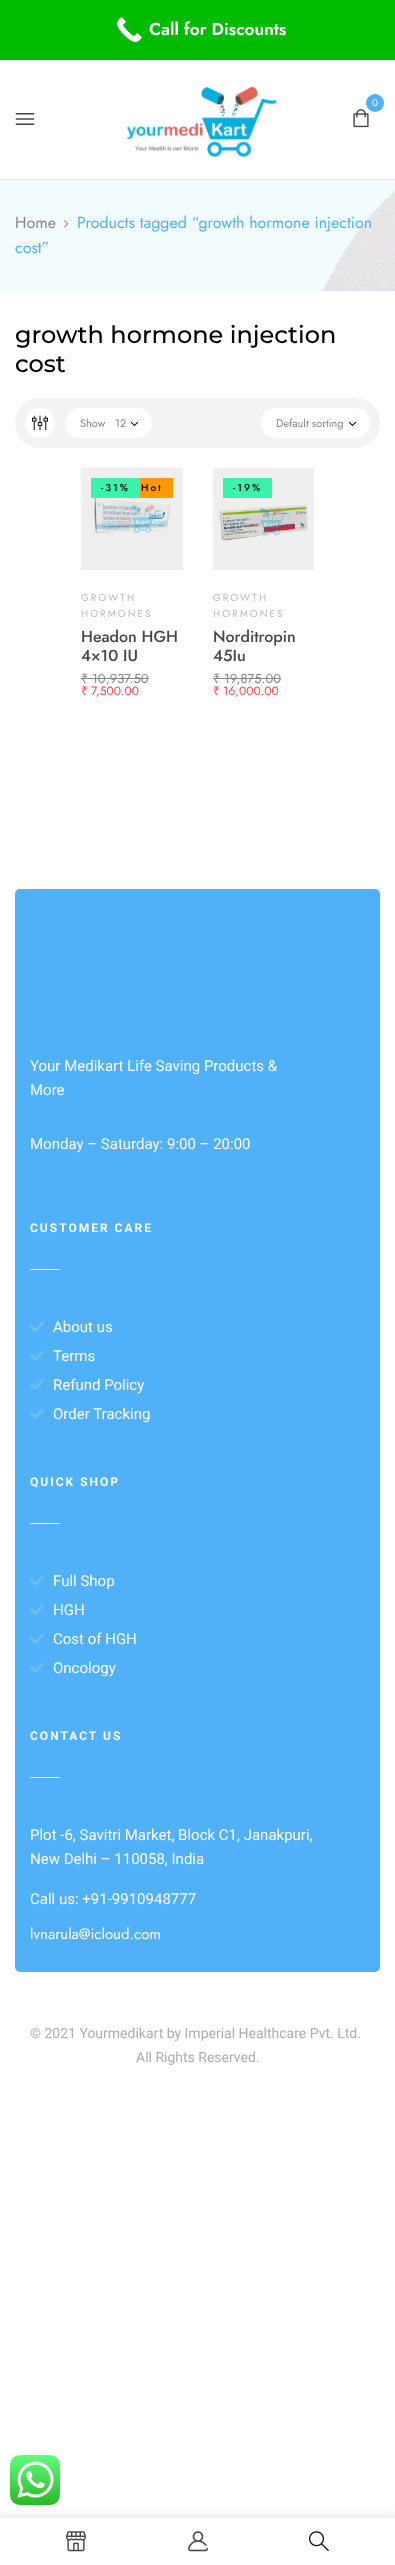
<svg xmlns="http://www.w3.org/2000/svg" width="395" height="2565">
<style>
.a{font:600 17.25px Jost;fill:#fff}
.b{font:10px Jost;fill:#fff}
.c{font:16px Jost;fill:#878787}
.d{font:16px Jost;fill:#50b1f9}
.e{font:500 24px Montserrat;fill:#000}
.f{font:11px Jost;fill:#878787}
.g{font:500 10px Jost;letter-spacing:2px;fill:#000}
.h{font:10px Jost;letter-spacing:2px;fill:#b9b9b9}
.i{font:500 16px Jost;fill:#474747}
.j{font:13px Noto Sans;fill:#878787}
.k{font:13px Jost;fill:#878787}
.l{font:12px Noto Sans;fill:#ff4545}
.m{font:12px Jost;fill:#ff4545}
.n{font:15px Roboto;fill:#fff}
.o{font:bold 12px Roboto;letter-spacing:2px;fill:#fff}
.p{font:15px Jost;fill:#fff}
.q{font:14px Roboto;fill:#adadad}
</style>
<defs>
<clipPath id="clip1"><path d="M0 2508h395v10H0z"/></clipPath>
</defs>
<rect width="100%" height="100%" fill="#fff"/>
<path fill="#0b0" d="M0 0h395v60H0z"/>
<image href="1.png" x="117" y="17" width="25" height="25"/>
<path fill="#e5e5e5" d="M0 179h395v1H0z"/>
<image href="2.png" x="126" y="86" width="151" height="72"/>
<image href="3.png" x="353" y="109" width="16" height="19"/>
<circle fill="#50b1f9" cx="375" cy="103" r="9"/>
<image href="4.png" x="15" y="113" width="20" height="12"/>
<g clip-path="url(#clip1)">
<path fill="#8f8f8f4d" filter="blur(6px)" d="M-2 2517h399v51H-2z"/>
</g>
<image href="5.png" x="66" y="2531" width="20" height="21"/>
<image href="6.png" x="188" y="2531" width="20" height="21"/>
<image href="7.png" x="309" y="2531" width="20" height="21"/>
<image href="8.png" x="0" y="180" width="395" height="111"/>
<image href="9.png" x="64" y="220" width="5" height="8"/>
<rect fill="#f3f3f3" x="15" y="398" width="365" height="50" rx="25"/>
<circle fill="#fff" cx="40" cy="423" r="15"/>
<image href="10.png" x="32" y="415" width="16" height="16"/>
<rect fill="#fff" x="65" y="408" width="87" height="30" rx="15"/>
<image href="11.png" x="130" y="421" width="9" height="5"/>
<rect fill="#fff" x="261" y="408" width="109" height="30" rx="15"/>
<image href="11.png" x="348" y="421" width="9" height="5"/>
<image href="12.png" x="81" y="468" width="102" height="102"/>
<path fill="#3bf4ab" d="M91 478h49v20H91z"/>
<path fill="#f90" d="M140 478h33v20H140z"/>
<path fill="#878787" d="M81 678h7v1H81z"/>
<path fill="#878787" d="M88 678h61v1H88z"/>
<image href="13.png" x="213" y="468" width="101" height="102"/>
<path fill="#3bf4ab" d="M223 478h49v20H223z"/>
<path fill="#878787" d="M213 678h7v1H213z"/>
<path fill="#878787" d="M220 678h61v1H220z"/>
<rect fill="#50b1f9" x="15" y="889" width="365" height="1083" rx="5"/>
<path fill="#fff" d="M30 1269h30v1H30z"/>
<image href="14.png" x="30" y="1321" width="14" height="11"/>
<image href="14.png" x="30" y="1350" width="14" height="11"/>
<image href="14.png" x="30" y="1379" width="14" height="11"/>
<image href="14.png" x="30" y="1408" width="14" height="11"/>
<path fill="#fff" d="M30 1523h30v1H30z"/>
<image href="14.png" x="30" y="1575" width="14" height="11"/>
<image href="14.png" x="30" y="1604" width="14" height="11"/>
<image href="14.png" x="30" y="1633" width="14" height="11"/>
<image href="14.png" x="30" y="1662" width="14" height="11"/>
<path fill="#fff" d="M30 1777h30v1H30z"/>
<image href="15.png" x="10" y="2455" width="50" height="50"/>
<text class="a" x="149" y="35">Call for Discounts</text>
<text class="b" x="372" y="106">0</text>
<text class="c" x="15" y="228">Home</text>
<text class="d" x="77" y="228">Products tagged “growth hormone injection</text>
<text class="d" x="15" y="253">cost”</text>
<text class="e" x="15" y="343">growth hormone injection</text>
<text class="e" x="15" y="372">cost</text>
<text class="f" x="80" y="427">Show</text>
<text class="f" x="115" y="427">12</text>
<text class="f" x="276" y="427">Default sorting</text>
<text class="g" x="101" y="491">-31%</text>
<text class="g" x="141" y="491">Hot</text>
<text class="h" x="81" y="601">GROWTH</text>
<text class="h" x="81" y="617">HORMONES</text>
<text class="i" x="81" y="642">Headon HGH</text>
<text class="i" x="81" y="661">4×10 IU</text>
<text class="j" x="81" y="683">₹</text>
<text class="k" x="92" y="683">10,937.50</text>
<text class="l" x="81" y="695">₹</text>
<text class="m" x="91" y="695">7,500.00</text>
<text class="g" x="233" y="491">-19%</text>
<text class="h" x="213" y="601">GROWTH</text>
<text class="h" x="213" y="617">HORMONES</text>
<text class="i" x="213" y="642">Norditropin</text>
<text class="i" x="213" y="661">45Iu</text>
<text class="j" x="213" y="683">₹</text>
<text class="k" x="224" y="683">19,875.00</text>
<text class="l" x="213" y="695">₹</text>
<text class="m" x="223" y="695">16,000.00</text>
<text class="n" x="30" y="1071">Your Medikart Life Saving Products &amp;</text>
<text class="n" x="30" y="1095">More</text>
<text class="n" x="30" y="1149">Monday – Saturday: 9:00 – 20:00</text>
<text class="o" x="30" y="1232">CUSTOMER CARE</text>
<text class="n" x="53" y="1332">About us</text>
<text class="n" x="53" y="1361">Terms</text>
<text class="n" x="53" y="1390">Refund Policy</text>
<text class="n" x="53" y="1419">Order Tracking</text>
<text class="o" x="30" y="1486">QUICK SHOP</text>
<text class="n" x="53" y="1586">Full Shop</text>
<text class="n" x="53" y="1615">HGH</text>
<text class="n" x="53" y="1644">Cost of HGH</text>
<text class="n" x="53" y="1673">Oncology</text>
<text class="o" x="30" y="1740">CONTACT US</text>
<text class="n" x="30" y="1840">Plot -6, Savitri Market, Block C1, Janakpuri,</text>
<text class="n" x="30" y="1864">New Delhi – 110058, India</text>
<text class="n" x="30" y="1904">Call us: +91-9910948777</text>
<text class="p" x="30" y="1939">lvnarula@icloud.com</text>
<text class="q" x="30" y="2038">© 2021 Yourmedikart by Imperial Healthcare Pvt. Ltd.</text>
<text class="q" x="136" y="2062">All Rights Reserved.</text>
</svg>
